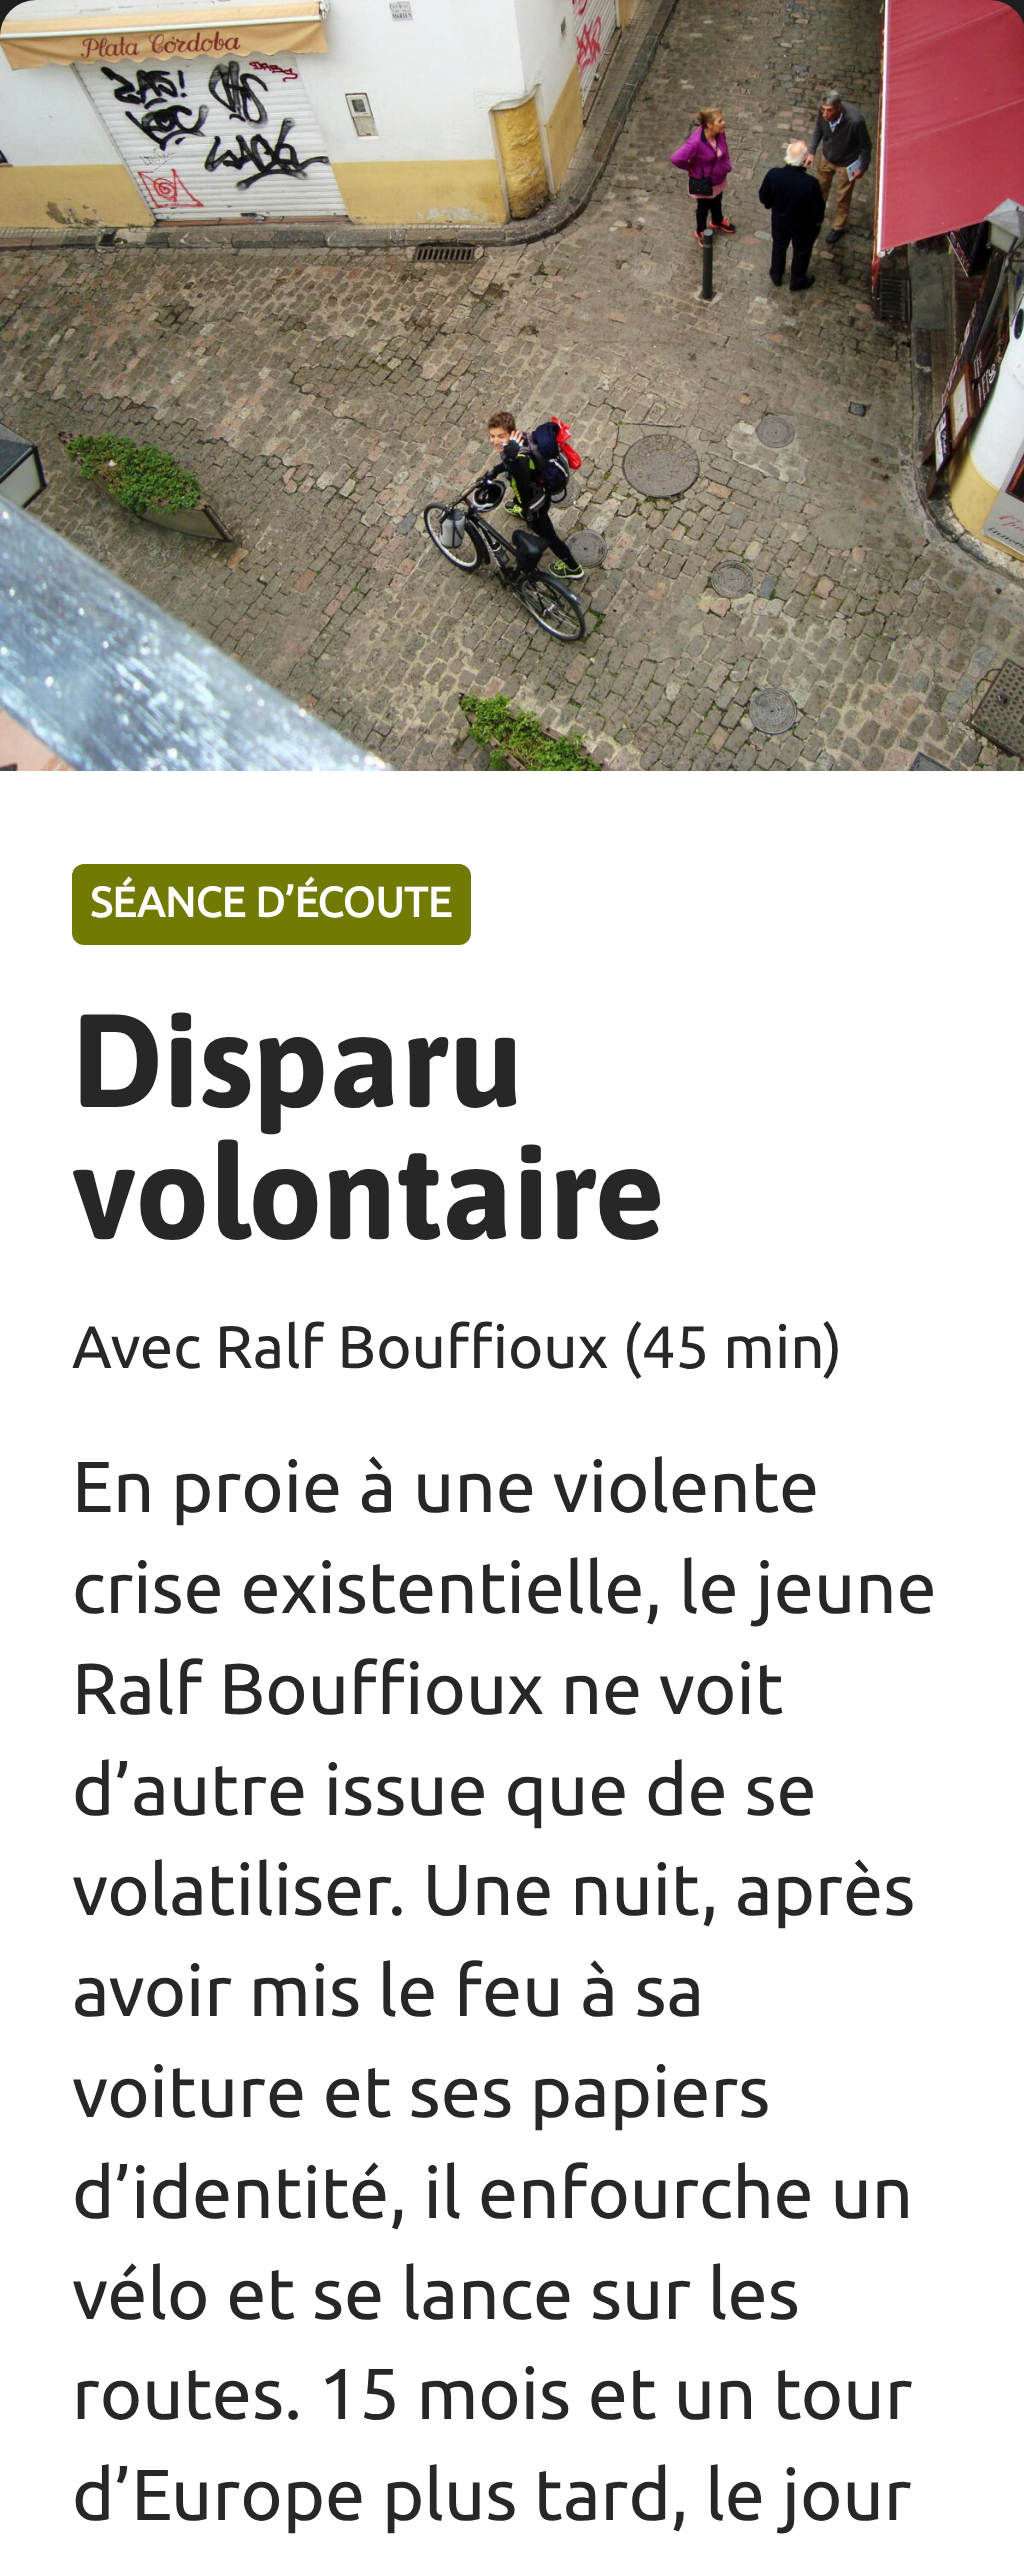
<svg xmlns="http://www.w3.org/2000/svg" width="1024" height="2554">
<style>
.a{font:bold 42px Ubuntu;fill:#fff}
.b{font:bold 132px Asap;fill:#272727}
.c{font:60px Ubuntu;fill:#272727}
.d{font:72px Ubuntu;fill:#272727}
</style>
<rect width="100%" height="100%" fill="#fff"/>
<path fill="#1e1e1e" d="M0 0h1024v36H0z"/>
<image href="1.png" x="0" y="0" width="1024" height="771"/>
<rect fill="#717a03" x="72" y="864" width="399" height="81" rx="12"/>
<text class="a" x="90" y="917">SÉANCE D’ÉCOUTE</text>
<text class="b" x="72" y="1107">Disparu</text>
<text class="b" x="72" y="1239">volontaire</text>
<text class="c" x="72" y="1368">Avec Ralf Bouffioux (45 min)</text>
<text class="d" x="72" y="1512">En proie à une violente</text>
<text class="d" x="72" y="1613">crise existentielle, le jeune</text>
<text class="d" x="72" y="1714">Ralf Bouffioux ne voit</text>
<text class="d" x="72" y="1815">d’autre issue que de se</text>
<text class="d" x="72" y="1915">volatiliser. Une nuit, après</text>
<text class="d" x="72" y="2016">avoir mis le feu à sa</text>
<text class="d" x="72" y="2117">voiture et ses papiers</text>
<text class="d" x="72" y="2218">d’identité, il enfourche un</text>
<text class="d" x="72" y="2319">vélo et se lance sur les</text>
<text class="d" x="72" y="2419">routes. 15 mois et un tour</text>
<text class="d" x="72" y="2520">d’Europe plus tard, le jour</text>
</svg>
